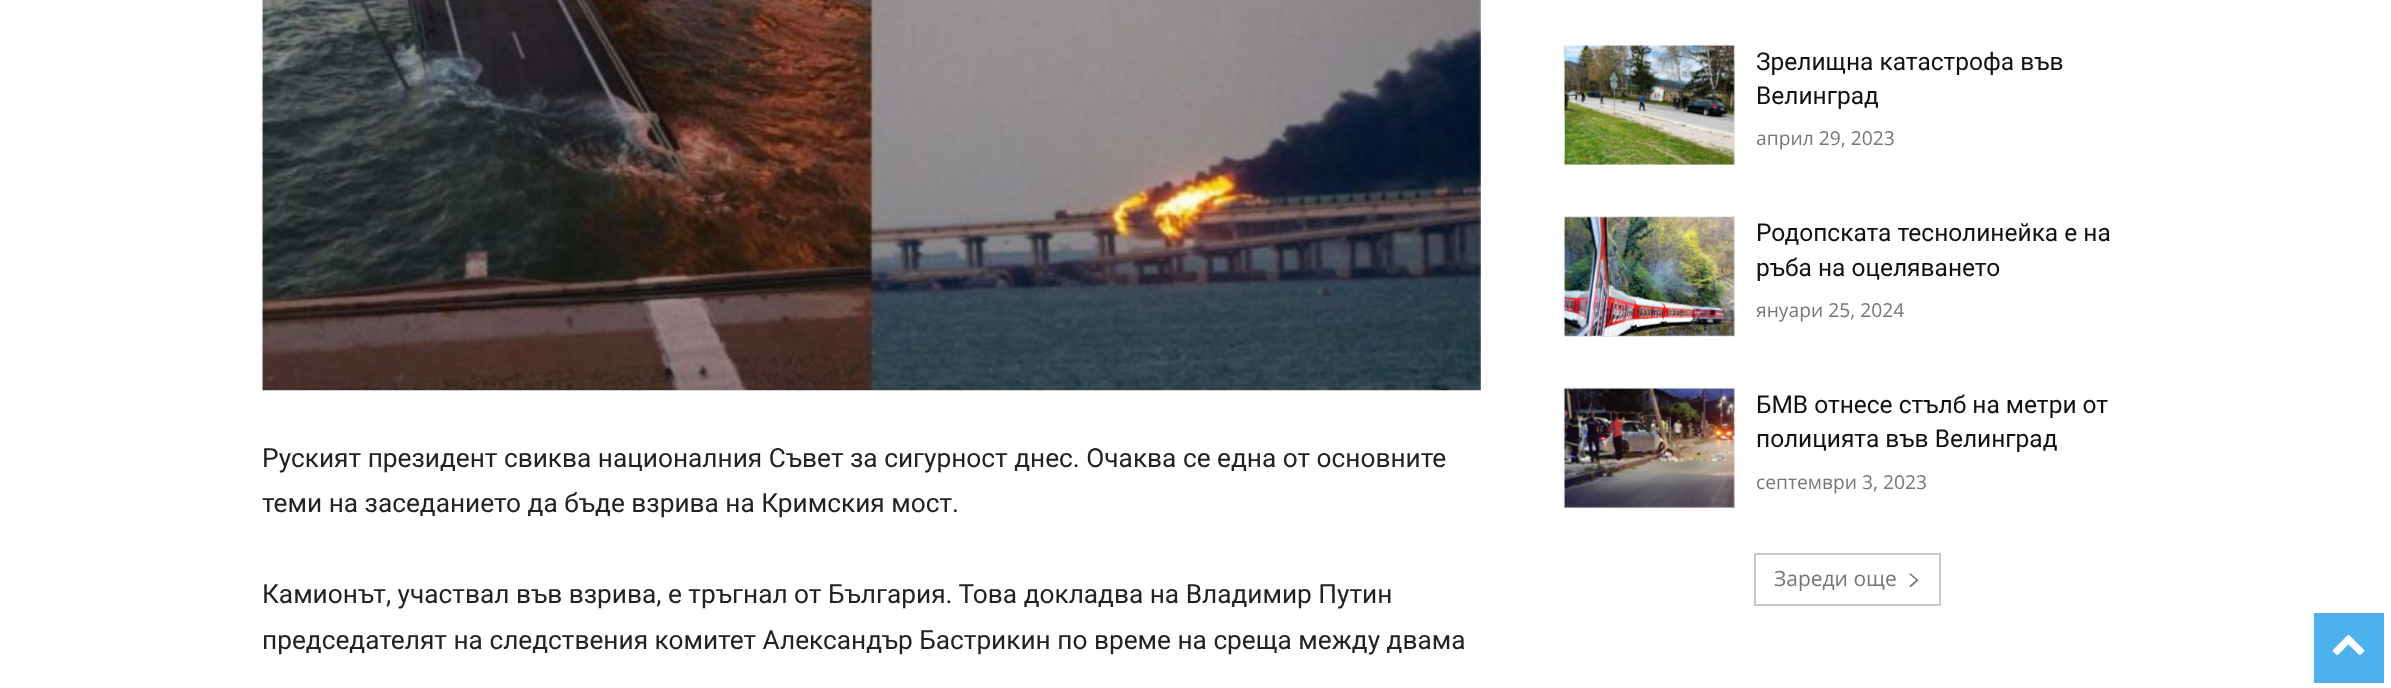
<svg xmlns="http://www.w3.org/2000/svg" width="2391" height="688">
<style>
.a{font:26.25px Roboto;fill:#222}
.b{font:24.5px Roboto;fill:#111}
.c{font:19.25px Open Sans;fill:#767676}
.d{font:21px Open Sans;fill:#767676}
</style>
<rect width="100%" height="100%" fill="#fff"/>
<image href="1.png" x="261" y="0" width="1220" height="391"/>
<image href="2.png" x="1563" y="44" width="172" height="121"/>
<image href="3.png" x="1563" y="216" width="172" height="121"/>
<image href="4.png" x="1563" y="387" width="172" height="121"/>
<path fill="none" stroke="#c9c9c9" stroke-width="2" d="M1755 554h185v51H1755z"/>
<image href="5.png" x="1909" y="573" width="10" height="15"/>
<path fill="#4db2ec" d="M2314 613h70v70H2314z"/>
<image href="6.png" x="2332" y="634" width="33" height="21"/>
<text class="a" x="262" y="467">Руският президент свиква националния Съвет за сигурност днес. Очаква се една от основните</text>
<text class="a" x="262" y="512">теми на заседанието да бъде взрива на Кримския мост.</text>
<text class="a" x="262" y="603">Камионът, участвал във взрива, е тръгнал от България. Това докладва на Владимир Путин</text>
<text class="a" x="262" y="649">председателят на следствения комитет Александър Бастрикин по време на среща между двама</text>
<text class="b" x="1756" y="70">Зрелищна катастрофа във</text>
<text class="b" x="1756" y="104">Велинград</text>
<text class="c" x="1756" y="145">април 29, 2023</text>
<text class="b" x="1756" y="241">Родопската теснолинейка е на</text>
<text class="b" x="1756" y="276">ръба на оцеляването</text>
<text class="c" x="1756" y="317">януари 25, 2024</text>
<text class="b" x="1756" y="413">БМВ отнесе стълб на метри от</text>
<text class="b" x="1756" y="447">полицията във Велинград</text>
<text class="c" x="1756" y="489">септември 3, 2023</text>
<text class="d" x="1774" y="586">Зареди още</text>
</svg>
